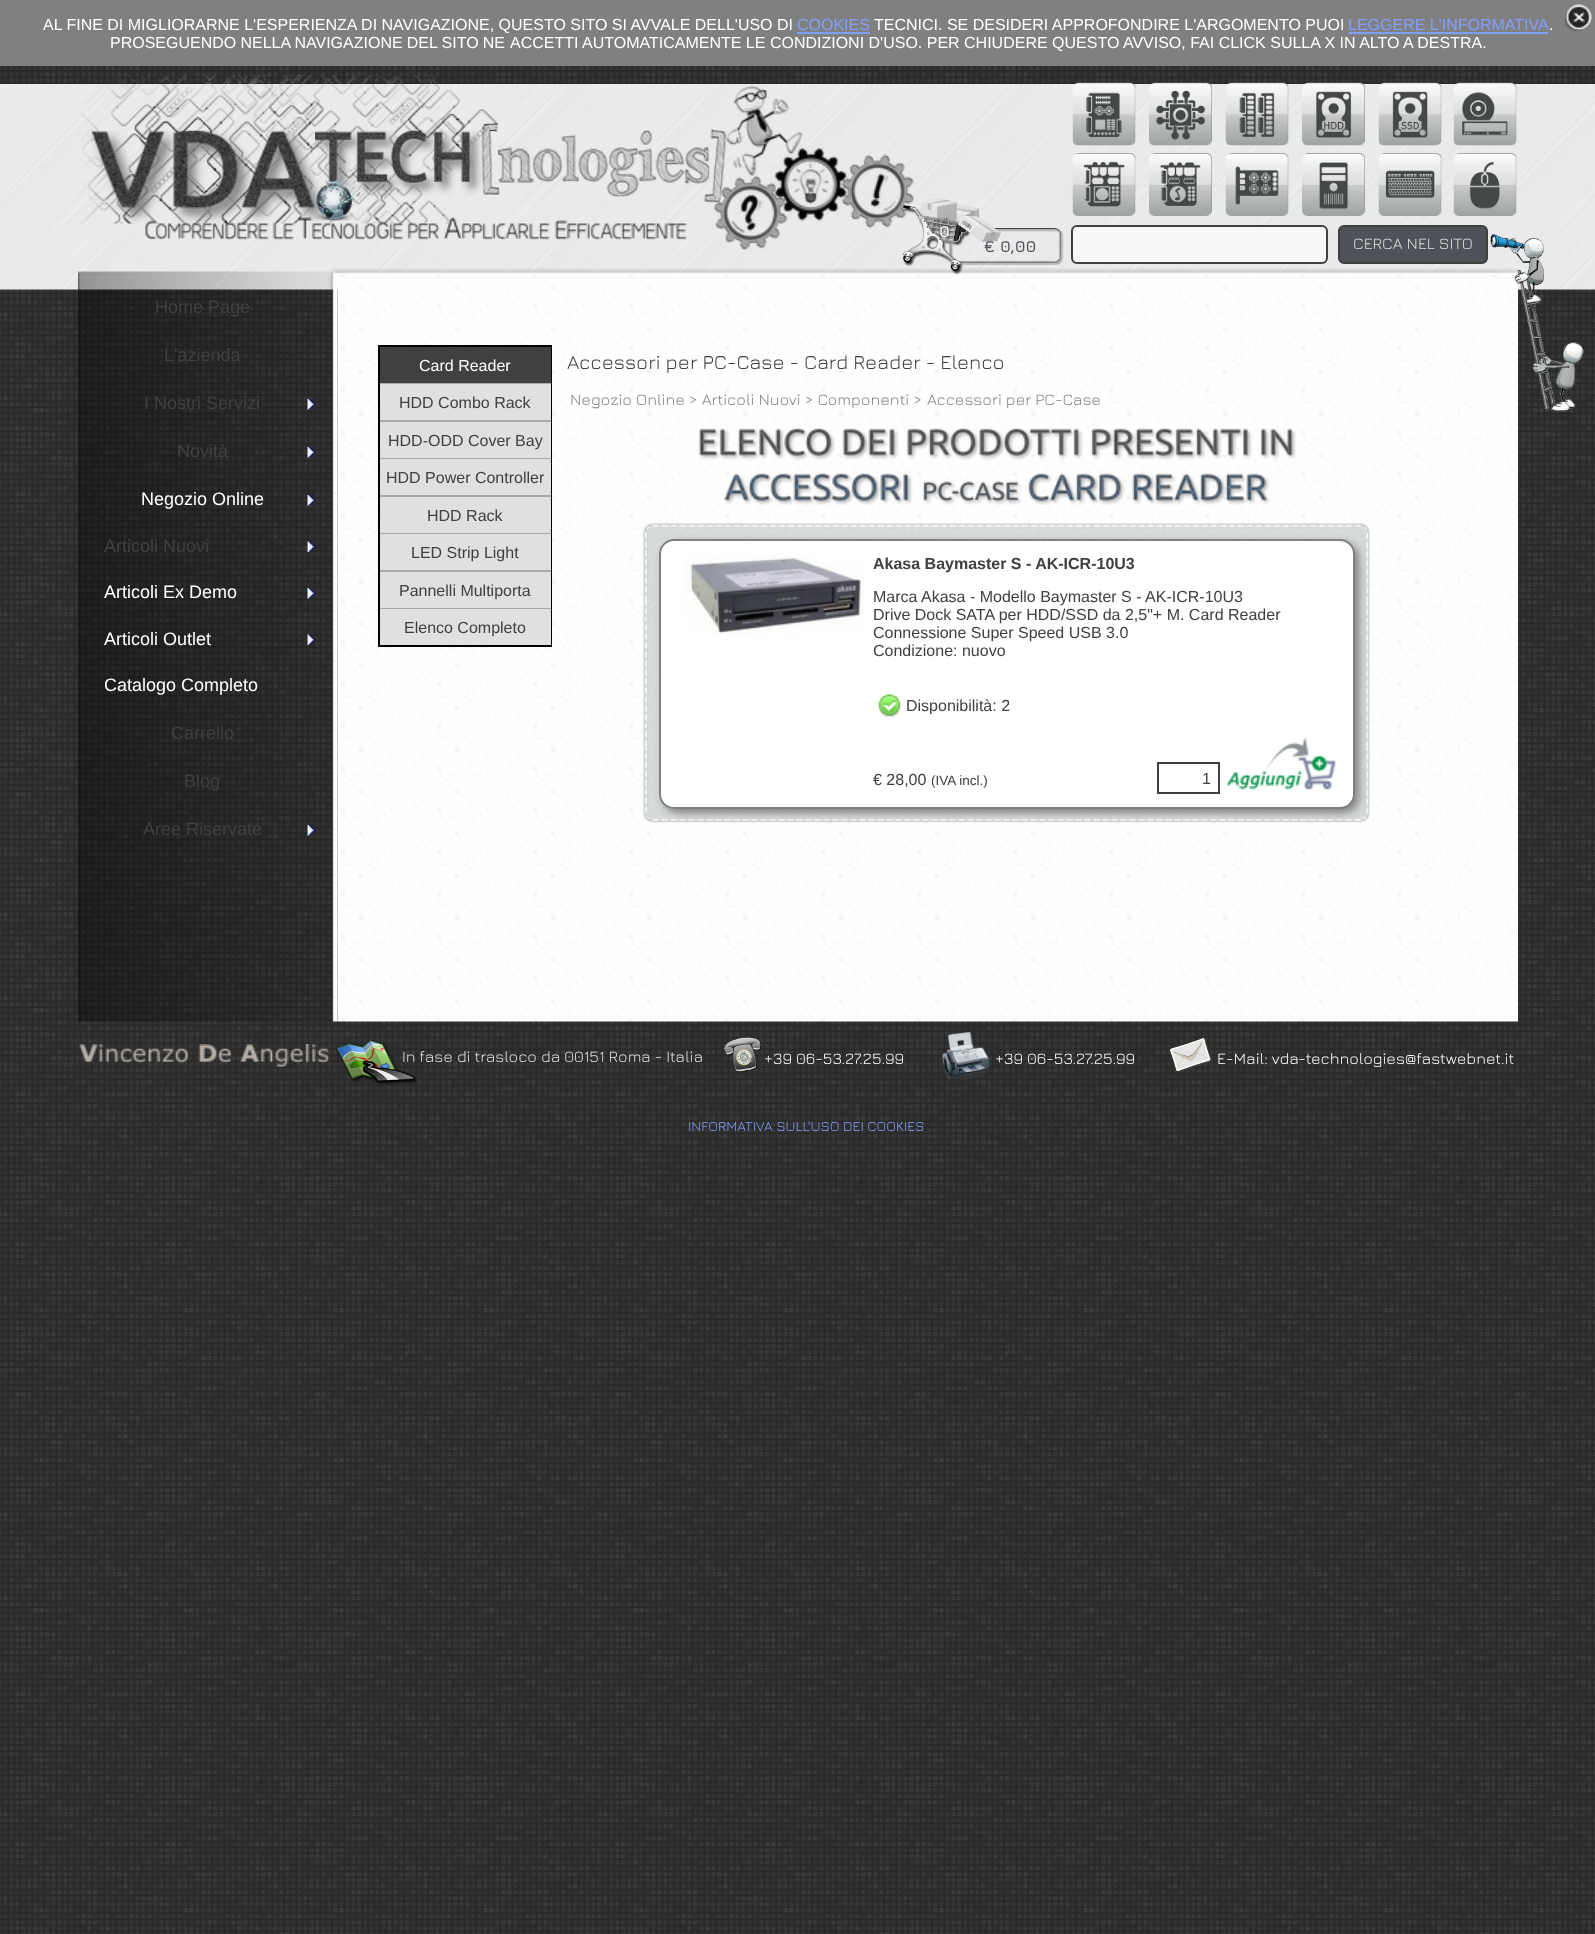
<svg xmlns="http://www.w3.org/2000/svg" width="1595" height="1934">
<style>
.a{font:16px Liberation Sans;fill:#fff}
.b{font:16px Liberation Sans;fill:#809fff}
.c{font:bold 16px Jura;fill:#fff}
.d{font:16px Jura;fill:#e0e0e0}
.e{font:bold 16px Jura;fill:#505259}
.f{font:18px Liberation Sans;fill:#404040}
.g{font:18px Liberation Sans;fill:#fff}
.h{font:16px Liberation Sans;fill:#404040}
.i{font:20px Jura;fill:#404040}
.j{font:16px Jura;fill:#808080}
.k{font:bold 16px Liberation Sans;fill:#404040}
.l{font:13.5px Liberation Sans;fill:#404040}
.m{font:16px Jura;fill:#fff}
.n{font:14px Jura;fill:#809fff}
</style>
<defs>
<clipPath id="clip1"><path d="M1217 1049h309v18H1217z"/></clipPath>
</defs>
<rect width="100%" height="100%" fill="#fff"/>
<image href="1.png" x="0" y="66" width="1595" height="1868"/>
<path fill="#808080" d="M0 0h1595v66H0z"/>
<path fill="#809fff" d="M797 32h73v2H797z"/>
<path fill="#809fff" d="M1349 32h199v2H1349z"/>
<image href="2.png" x="1564" y="4" width="28" height="28"/>
<image href="3.png" x="0" y="84" width="1595" height="206"/>
<image href="4.png" x="78" y="268" width="1440" height="10"/>
<image href="5.png" x="81" y="75" width="418" height="149"/>
<image href="6.png" x="713" y="85" width="201" height="165"/>
<image href="7.png" x="1072" y="82" width="64" height="64"/>
<image href="8.png" x="1149" y="82" width="63" height="64"/>
<image href="9.png" x="1225" y="82" width="64" height="64"/>
<image href="10.png" x="1302" y="82" width="63" height="64"/>
<image href="11.png" x="1378" y="82" width="64" height="64"/>
<image href="12.png" x="1453" y="82" width="64" height="64"/>
<image href="13.png" x="91" y="130" width="237" height="94"/>
<image href="16.png" x="498" y="130" width="212" height="67"/>
<image href="15.png" x="481" y="123" width="19" height="72"/>
<image href="14.png" x="315" y="130" width="167" height="66"/>
<image href="17.png" x="704" y="129" width="22" height="74"/>
<image href="18.png" x="1072" y="153" width="64" height="63"/>
<image href="19.png" x="1149" y="153" width="63" height="63"/>
<image href="20.png" x="1225" y="153" width="64" height="63"/>
<image href="21.png" x="1302" y="153" width="63" height="63"/>
<image href="22.png" x="1378" y="153" width="64" height="63"/>
<image href="23.png" x="1453" y="153" width="64" height="63"/>
<image href="24.png" x="314" y="180" width="40" height="41"/>
<image href="26.png" x="936" y="204" width="44" height="21"/>
<image href="30.png" x="949" y="228" width="115" height="37"/>
<image href="25.png" x="921" y="198" width="36" height="33"/>
<image href="27.png" x="145" y="217" width="542" height="23"/>
<image href="28.png" x="893" y="205" width="80" height="70"/>
<image href="29.png" x="957" y="215" width="45" height="27"/>
<rect fill="#f8f8f8" stroke="#404040" stroke-width="2" x="1072" y="226" width="255" height="37" rx="5"/>
<rect fill="#505259" stroke="#404040" stroke-width="2" x="1339" y="226" width="148" height="37" rx="5"/>
<image href="40.png" x="337" y="277" width="1181" height="745"/>
<image href="31.png" x="1490" y="234" width="94" height="178"/>
<image href="32.png" x="78" y="277" width="260" height="745"/>
<image href="33.png" x="307" y="399" width="9" height="11"/>
<image href="34.png" x="307" y="447" width="9" height="11"/>
<image href="35.png" x="307" y="495" width="9" height="11"/>
<image href="36.png" x="307" y="541" width="9" height="11"/>
<image href="37.png" x="307" y="588" width="9" height="11"/>
<image href="38.png" x="307" y="634" width="9" height="11"/>
<image href="39.png" x="307" y="825" width="9" height="11"/>
<path fill="none" stroke="#000" stroke-width="2" d="M379 346h172v300H379z"/>
<path fill="#404040" d="M380 347h171v36H380z"/>
<path fill="#a9a9a9" d="M380 383h171v1H380z"/>
<path fill="#e0e0e0" d="M380 384h171v36H380z"/>
<path fill="#a9a9a9" d="M380 420h171v2H380z"/>
<path fill="#e0e0e0" d="M380 422h171v36H380z"/>
<path fill="#a9a9a9" d="M380 458h171v1H380z"/>
<path fill="#e0e0e0" d="M380 459h171v36H380z"/>
<path fill="#a9a9a9" d="M380 495h171v2H380z"/>
<path fill="#e0e0e0" d="M380 497h171v36H380z"/>
<path fill="#a9a9a9" d="M380 533h171v1H380z"/>
<path fill="#e0e0e0" d="M380 534h171v36H380z"/>
<path fill="#a9a9a9" d="M380 570h171v2H380z"/>
<path fill="#e0e0e0" d="M380 572h171v36H380z"/>
<path fill="#a9a9a9" d="M380 608h171v1H380z"/>
<path fill="#e0e0e0" d="M380 609h171v36H380z"/>
<image href="41.png" x="698" y="428" width="598" height="77"/>
<image href="42.png" x="643" y="523" width="125" height="77"/>
<image href="43.png" x="768" y="523" width="477" height="16"/>
<image href="44.png" x="1245" y="523" width="125" height="77"/>
<image href="45.png" x="643" y="600" width="16" height="147"/>
<image href="46.png" x="1355" y="600" width="15" height="147"/>
<image href="47.png" x="643" y="747" width="125" height="76"/>
<image href="48.png" x="768" y="809" width="477" height="14"/>
<image href="49.png" x="1245" y="747" width="125" height="76"/>
<rect fill="#808080" filter="blur(4px)" x="663" y="543" width="696" height="270" rx="15"/>
<rect fill="#fff" stroke="#808080" stroke-width="2" x="660" y="540" width="694" height="268" rx="14"/>
<image href="50.png" x="684" y="553" width="180" height="82"/>
<image href="51.png" x="878" y="694" width="23" height="24"/>
<path fill="none" stroke="#404040" stroke-width="2" d="M1158 763h61v30H1158z"/>
<image href="52.png" x="1227" y="737" width="110" height="54"/>
<image href="53.png" x="79" y="1044" width="250" height="23"/>
<image href="55.png" x="724" y="1037" width="38" height="35"/>
<image href="56.png" x="942" y="1032" width="48" height="49"/>
<image href="57.png" x="1170" y="1038" width="42" height="35"/>
<text class="a" x="43" y="30">AL FINE DI MIGLIORARNE L'ESPERIENZA DI NAVIGAZIONE, QUESTO SITO SI AVVALE DELL'USO DI</text>
<text class="b" x="797" y="30">COOKIES</text>
<text class="a" x="874" y="30">TECNICI. SE DESIDERI APPROFONDIRE L'ARGOMENTO PUOI</text>
<text class="b" x="1348" y="30">LEGGERE L'INFORMATIVA</text>
<text class="a" x="1549" y="30">.</text>
<text class="a" x="110" y="48" word-spacing="-0.25">PROSEGUENDO NELLA NAVIGAZIONE DEL SITO NE</text>
<text class="a" x="510" y="48">ACCETTI AUTOMATICAMENTE LE CONDIZIONI D'USO. PER CHIUDERE QUESTO AVVISO, FAI CLICK SULLA X IN ALTO A DESTRA.</text>
<text class="c" x="939" y="237">0</text>
<text class="d" x="1353" y="249">CERCA NEL SITO</text>
<text class="e" x="984" y="252">€ 0,00</text>
<text class="f" x="155" y="313">Home Page</text>
<text class="f" x="164" y="361">L'azienda</text>
<text class="f" x="144" y="409">I Nostri Servizi</text>
<text class="f" x="177" y="457">Novità</text>
<text class="g" x="141" y="505">Negozio Online</text>
<text class="f" x="104" y="552">Articoli Nuovi</text>
<text class="g" x="104" y="598">Articoli Ex Demo</text>
<text class="g" x="104" y="645">Articoli Outlet</text>
<text class="g" x="104" y="691">Catalogo Completo</text>
<text class="f" x="171" y="739">Carrello</text>
<text class="f" x="184" y="787">Blog</text>
<text class="f" x="143" y="835">Aree Riservate</text>
<text class="a" x="419" y="371">Card Reader</text>
<text class="h" x="399" y="408">HDD Combo Rack</text>
<text class="h" x="388" y="446">HDD-ODD Cover Bay</text>
<text class="h" x="386" y="483">HDD Power Controller</text>
<text class="h" x="427" y="521">HDD Rack</text>
<text class="h" x="411" y="558">LED Strip Light</text>
<text class="h" x="399" y="596">Pannelli Multiporta</text>
<text class="h" x="404" y="633">Elenco Completo</text>
<text class="i" x="567" y="369">Accessori per PC-Case - Card Reader - Elenco</text>
<text class="j" x="570" y="405">Negozio Online &gt; Articoli Nuovi &gt; Componenti &gt;</text>
<text class="j" x="927" y="405">Accessori per PC-Case</text>
<text class="k" x="873" y="569">Akasa Baymaster S - AK-ICR-10U3</text>
<text class="h" x="873" y="602">Marca Akasa - Modello Baymaster S - AK-ICR-10U3</text>
<text class="h" x="873" y="620">Drive Dock SATA per HDD/SSD da 2,5"+ M. Card Reader</text>
<text class="h" x="873" y="638">Connessione Super Speed USB 3.0</text>
<text class="h" x="873" y="656">Condizione: nuovo</text>
<text class="h" x="906" y="711">Disponibilità: 2</text>
<text class="h" x="873" y="785">€ 28,00</text>
<text class="l" x="931" y="785">(IVA incl.)</text>
<text class="h" x="1202" y="784">1</text>
<text class="d" x="402" y="1062">In fase di trasloco da 00151 Roma - Italia</text>
<image href="54.png" x="336" y="1040" width="81" height="45"/>
<text class="m" x="764" y="1064">+39 06-53.27.25.99</text>
<text class="m" x="995" y="1064">+39 06-53.27.25.99</text>
<g clip-path="url(#clip1)">
<text class="m" x="1217" y="1064">E-Mail: vda-technologies@fastwebnet.it</text>
</g>
<text class="n" x="688" y="1131">INFORMATIVA SULL'USO DEI COOKIES</text>
</svg>
